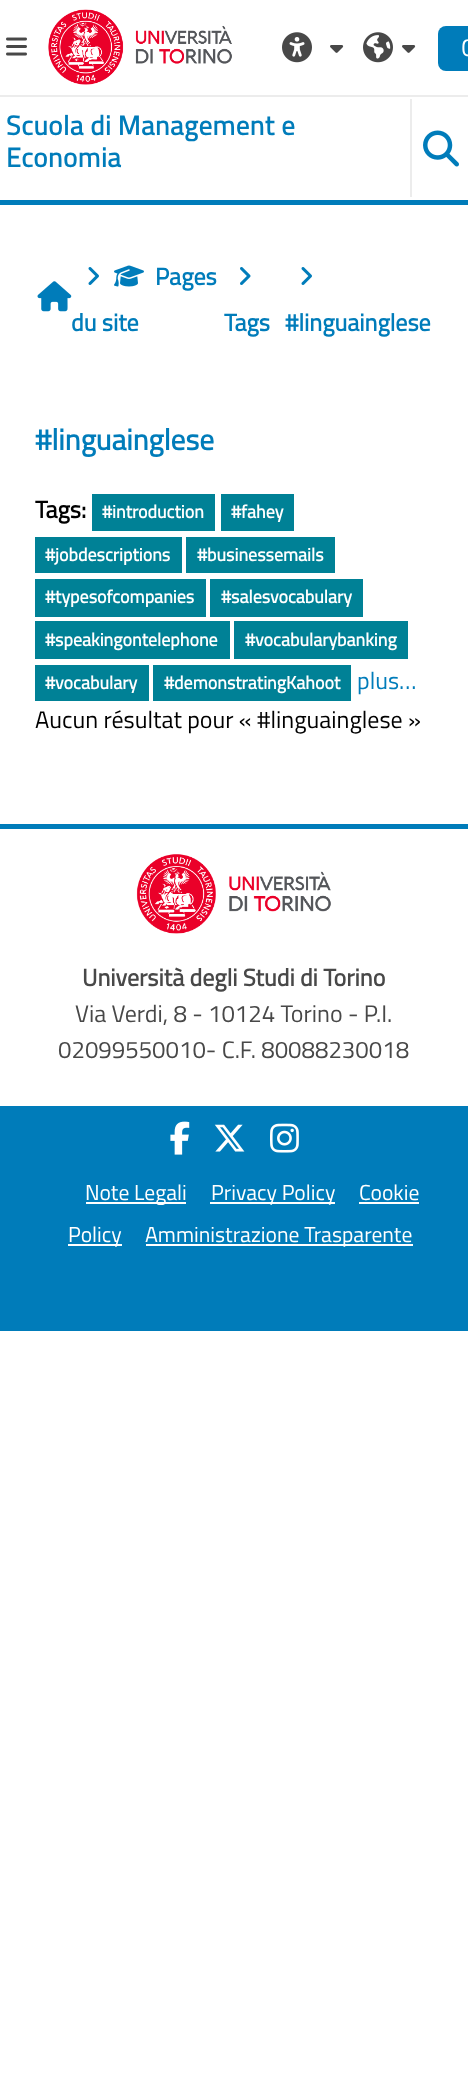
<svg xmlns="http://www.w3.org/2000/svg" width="468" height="2091">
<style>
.a{font:24px Titillium Web;fill:#fff}
.b{font:bold 27px Titillium Web;letter-spacing:0.5px;fill:#007cba}
.c{font:bold 24px Titillium Web;fill:#007cba}
.d{font:bold 29.5px Titillium Web;fill:#007cba}
.e{font:bold 24px Titillium Web;fill:#000}
.f{font:bold 18px Titillium Web;fill:#fff}
.g{font:24px Titillium Web;fill:#007cba}
.h{font:24px Titillium Web;fill:#000}
.i{font:bold 24px Titillium Web;fill:#484848}
.j{font:24px Titillium Web;fill:#484848}
.k{font:21.6px Titillium Web;fill:#fff}
</style>
<rect width="100%" height="100%" fill="#fff"/>
<path fill="#007cba" d="M0 200h468v5H0z"/>
<path fill="#ececec" d="M0 95h468v2H0z"/>
<image href="1.png" x="6" y="37" width="21" height="19"/>
<image href="2.png" x="48" y="9" width="184" height="76"/>
<image href="3.png" x="282" y="32" width="30" height="31"/>
<image href="4.png" x="330" y="45" width="14" height="8"/>
<image href="5.png" x="363" y="32" width="30" height="31"/>
<image href="4.png" x="402" y="45" width="14" height="8"/>
<rect fill="#007cba" x="438" y="26" width="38" height="45" rx="8"/>
<path fill="#ececec" d="M410 99h2v98H410z"/>
<image href="6.png" x="423" y="130" width="36" height="37"/>
<image href="7.png" x="37" y="281" width="35" height="31"/>
<image href="8.png" x="88" y="267" width="11" height="18"/>
<image href="9.png" x="114" y="265" width="30" height="22"/>
<image href="10.png" x="240" y="267" width="11" height="18"/>
<image href="8.png" x="301" y="267" width="11" height="18"/>
<path fill="#008196" d="M92 494h123v37H92z"/>
<path fill="#008196" d="M221 494h73v37H221z"/>
<path fill="#008196" d="M35 537h147v36H35z"/>
<path fill="#008196" d="M186 537h149v36H186z"/>
<path fill="#008196" d="M35 579h171v38H35z"/>
<path fill="#008196" d="M210 579h153v38H210z"/>
<path fill="#008196" d="M35 621h195v38H35z"/>
<path fill="#008196" d="M234 621h174v38H234z"/>
<path fill="#008196" d="M35 665h114v36H35z"/>
<path fill="#008196" d="M153 665h198v36H153z"/>
<path fill="#007cba" d="M0 824h468v5H0z"/>
<image href="11.png" x="136" y="854" width="195" height="80"/>
<path fill="#007cba" d="M0 1106h468v225H0z"/>
<image href="12.png" x="170" y="1121" width="20" height="34"/>
<image href="13.png" x="214" y="1124" width="31" height="28"/>
<image href="14.png" x="270" y="1123" width="29" height="30"/>
<path fill="#fff" d="M86 1202h100v2H86z"/>
<path fill="#fff" d="M210 1202h125v2H210z"/>
<path fill="#fff" d="M359 1202h60v2H359z"/>
<path fill="#fff" d="M68 1244h54v2H68z"/>
<path fill="#fff" d="M146 1244h267v2H146z"/>
<text class="a" x="461" y="56">C</text>
<text class="b" x="6" y="135">Scuola di Management e</text>
<text class="b" x="6" y="167">Economia</text>
<text class="c" x="155" y="285">Pages</text>
<text class="c" x="71" y="331">du site</text>
<text class="c" x="224" y="331">Tags</text>
<text class="c" x="285" y="331">#linguainglese</text>
<text class="d" x="35" y="450">#linguainglese</text>
<text class="e" x="35" y="518">Tags:</text>
<text class="f" x="102" y="518">#introduction</text>
<text class="f" x="231" y="518">#fahey</text>
<text class="f" x="45" y="561">#jobdescriptions</text>
<text class="f" x="197" y="561">#businessemails</text>
<text class="f" x="45" y="603">#typesofcompanies</text>
<text class="f" x="221" y="603">#salesvocabulary</text>
<text class="f" x="45" y="646">#speakingontelephone</text>
<text class="f" x="245" y="646">#vocabularybanking</text>
<text class="f" x="45" y="689">#vocabulary</text>
<text class="f" x="164" y="689">#demonstratingKahoot</text>
<text class="g" x="357" y="689">plus…</text>
<text class="h" x="35" y="728">Aucun résultat pour « #linguainglese »</text>
<text class="i" x="82" y="986">Università degli Studi di Torino</text>
<text class="j" x="75" y="1022">Via Verdi, 8 - 10124 Torino - P.I.</text>
<text class="j" x="58" y="1058">02099550010- C.F. 80088230018</text>
<text class="k" x="85" y="1200">Note Legali</text>
<text class="k" x="211" y="1200">Privacy Policy</text>
<text class="k" x="359" y="1200">Cookie</text>
<text class="k" x="68" y="1242">Policy</text>
<text class="k" x="145" y="1242">Amministrazione Trasparente</text>
</svg>
